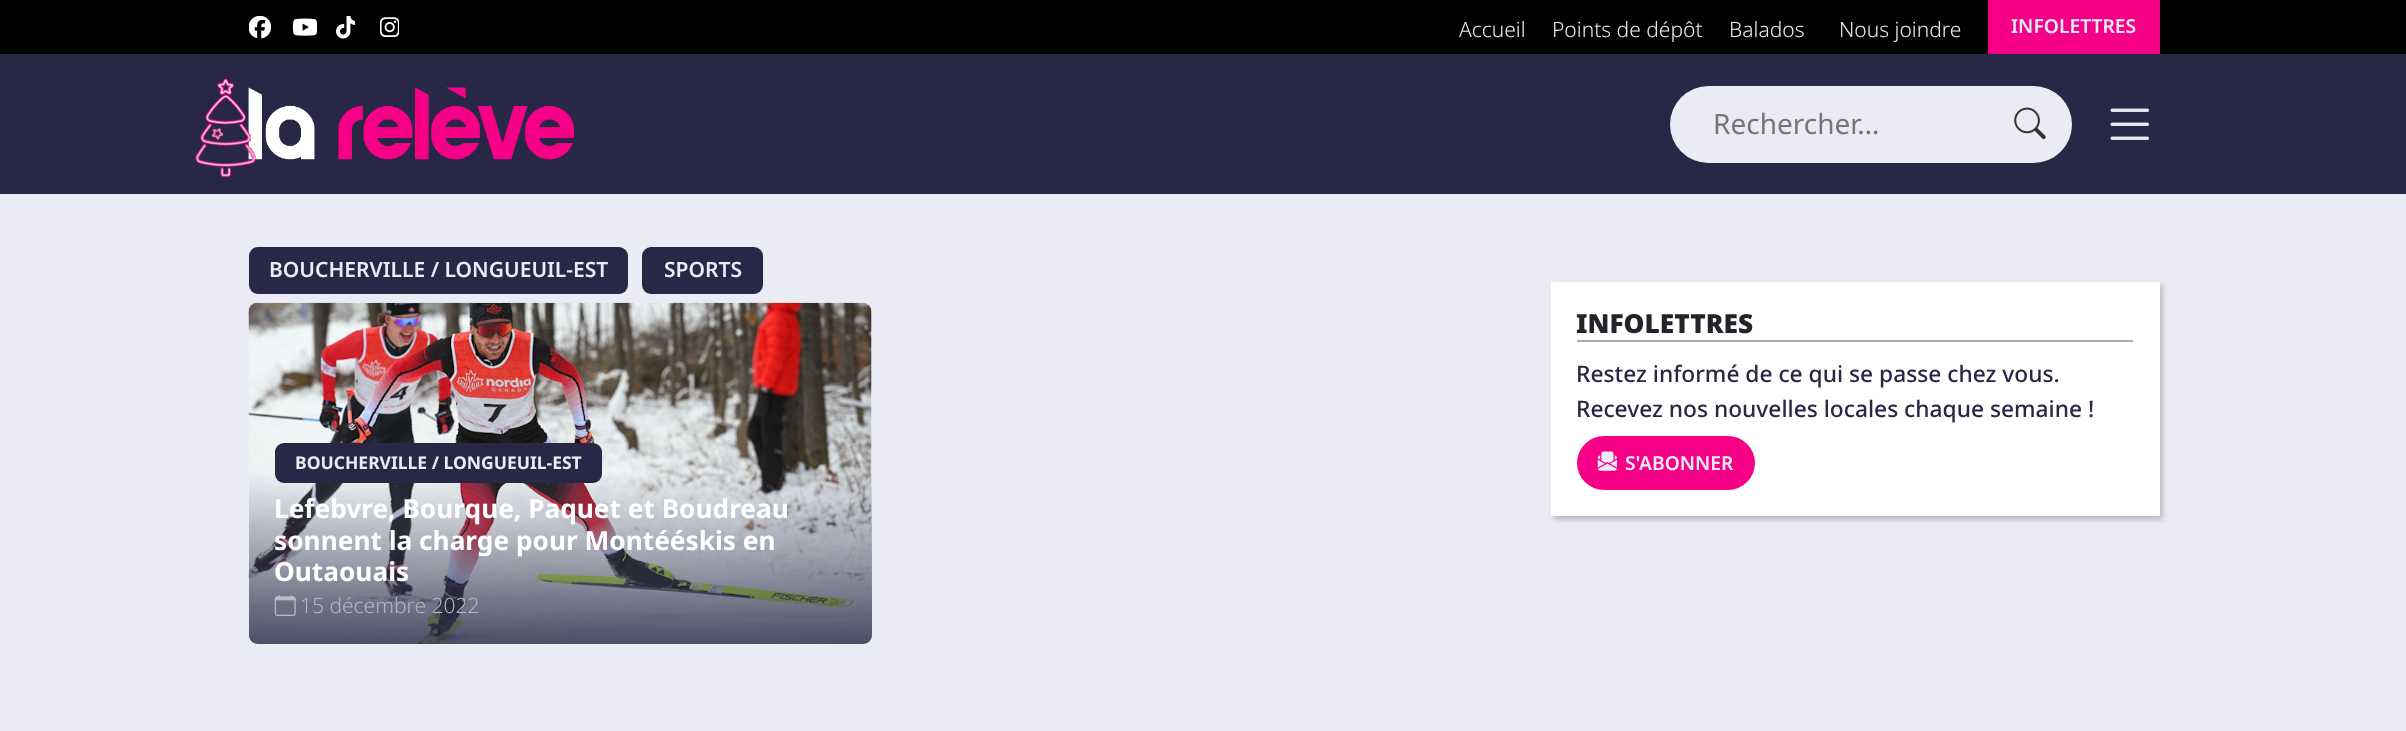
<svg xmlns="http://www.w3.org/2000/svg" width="2406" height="731">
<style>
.a{font:300 21px Noto Sans;fill:#ebebf5}
.b{font:600 19.25px Noto Sans;fill:#ebebf5}
.c{font:28px Noto Sans;fill:#757575}
.d{font:600 21px Noto Sans;fill:#ebebf5}
.e{font:bold 17.5px Noto Sans;fill:#ebebf5}
.f{font:bold 26.25px Noto Sans;fill:#fff}
.g{font:300 21px Noto Sans;fill:#b5b5c3}
.h{font:900 26.25px Noto Sans;fill:#212529}
.i{font:500 22.75px Noto Sans;fill:#282846}
</style>
<defs>
<linearGradient id="g1" gradientUnits="userSpaceOnUse" x1="560" y1="644" x2="560" y2="473"><stop offset="0" stop-color="#282846" stop-opacity="0.8"/><stop offset="1" stop-color="#282846" stop-opacity="0"/></linearGradient>
</defs>
<rect width="100%" height="100%" fill="#ebebf5"/>
<path fill="#000" d="M0 0h2406v54H0z"/>
<image href="1.png" x="249" y="16" width="22" height="23"/>
<image href="2.png" x="292" y="18" width="25" height="18"/>
<image href="3.png" x="336" y="16" width="19" height="23"/>
<image href="4.png" x="380" y="17" width="19" height="20"/>
<path fill="#f50087" d="M1988 0h172v54H1988z"/>
<path fill="#282846" d="M0 54h2406v140H0z"/>
<image href="6.png" x="248" y="87" width="327" height="73"/>
<image href="5.png" x="194" y="78" width="62" height="100"/>
<rect fill="#ebebf5" x="1670" y="86" width="402" height="77" rx="38.5"/>
<image href="7.png" x="2014" y="107" width="32" height="33"/>
<image href="8.png" x="2110" y="108" width="39" height="32"/>
<rect fill="#282846" x="249" y="247" width="379" height="47" rx="9"/>
<rect fill="#282846" x="642" y="247" width="121" height="47" rx="9"/>
<image href="9.png" x="248" y="302" width="624" height="342"/>
<path fill="url(#g1)" d="M249 473h623v162c0 5-4 9-9 9h-605c-5 0-9-4-9-9z"/>
<rect fill="#282846" x="275" y="443" width="327" height="40" rx="9"/>
<image href="10.png" x="274" y="595" width="22" height="21"/>
<path fill="#00000033" filter="blur(2.5px)" d="M1554 285h609v235H1554z"/>
<path fill="#fff" d="M1551 282h609v234H1551z"/>
<path fill="#ababb7" d="M1577 340h556v2H1577z"/>
<rect fill="#f50087" x="1577" y="436" width="178" height="54" rx="27"/>
<image href="11.png" x="1597" y="451" width="20" height="20"/>
<text class="a" x="1459" y="37">Accueil</text>
<text class="a" x="1552" y="37">Points de dépôt</text>
<text class="a" x="1729" y="37">Balados</text>
<text class="a" x="1839" y="37">Nous joindre</text>
<text class="b" x="2011" y="33">INFOLETTRES</text>
<text class="c" x="1713" y="134">Rechercher…</text>
<text class="d" x="269" y="277">BOUCHERVILLE / LONGUEUIL-EST</text>
<text class="d" x="664" y="277">SPORTS</text>
<text class="e" x="295" y="469">BOUCHERVILLE / LONGUEUIL-EST</text>
<text class="f" x="274" y="518">Lefebvre, Bourque, Paquet et Boudreau</text>
<text class="f" x="274" y="550">sonnent la charge pour Montééskis en</text>
<text class="f" x="274" y="581">Outaouais</text>
<text class="g" x="300" y="613">15 décembre 2022</text>
<text class="h" x="1576" y="333">INFOLETTRES</text>
<text class="i" x="1576" y="382">Restez informé de ce qui se passe chez vous.</text>
<text class="i" x="1576" y="417">Recevez nos nouvelles locales chaque semaine !</text>
<text class="b" x="1625" y="470">S'ABONNER</text>
</svg>
